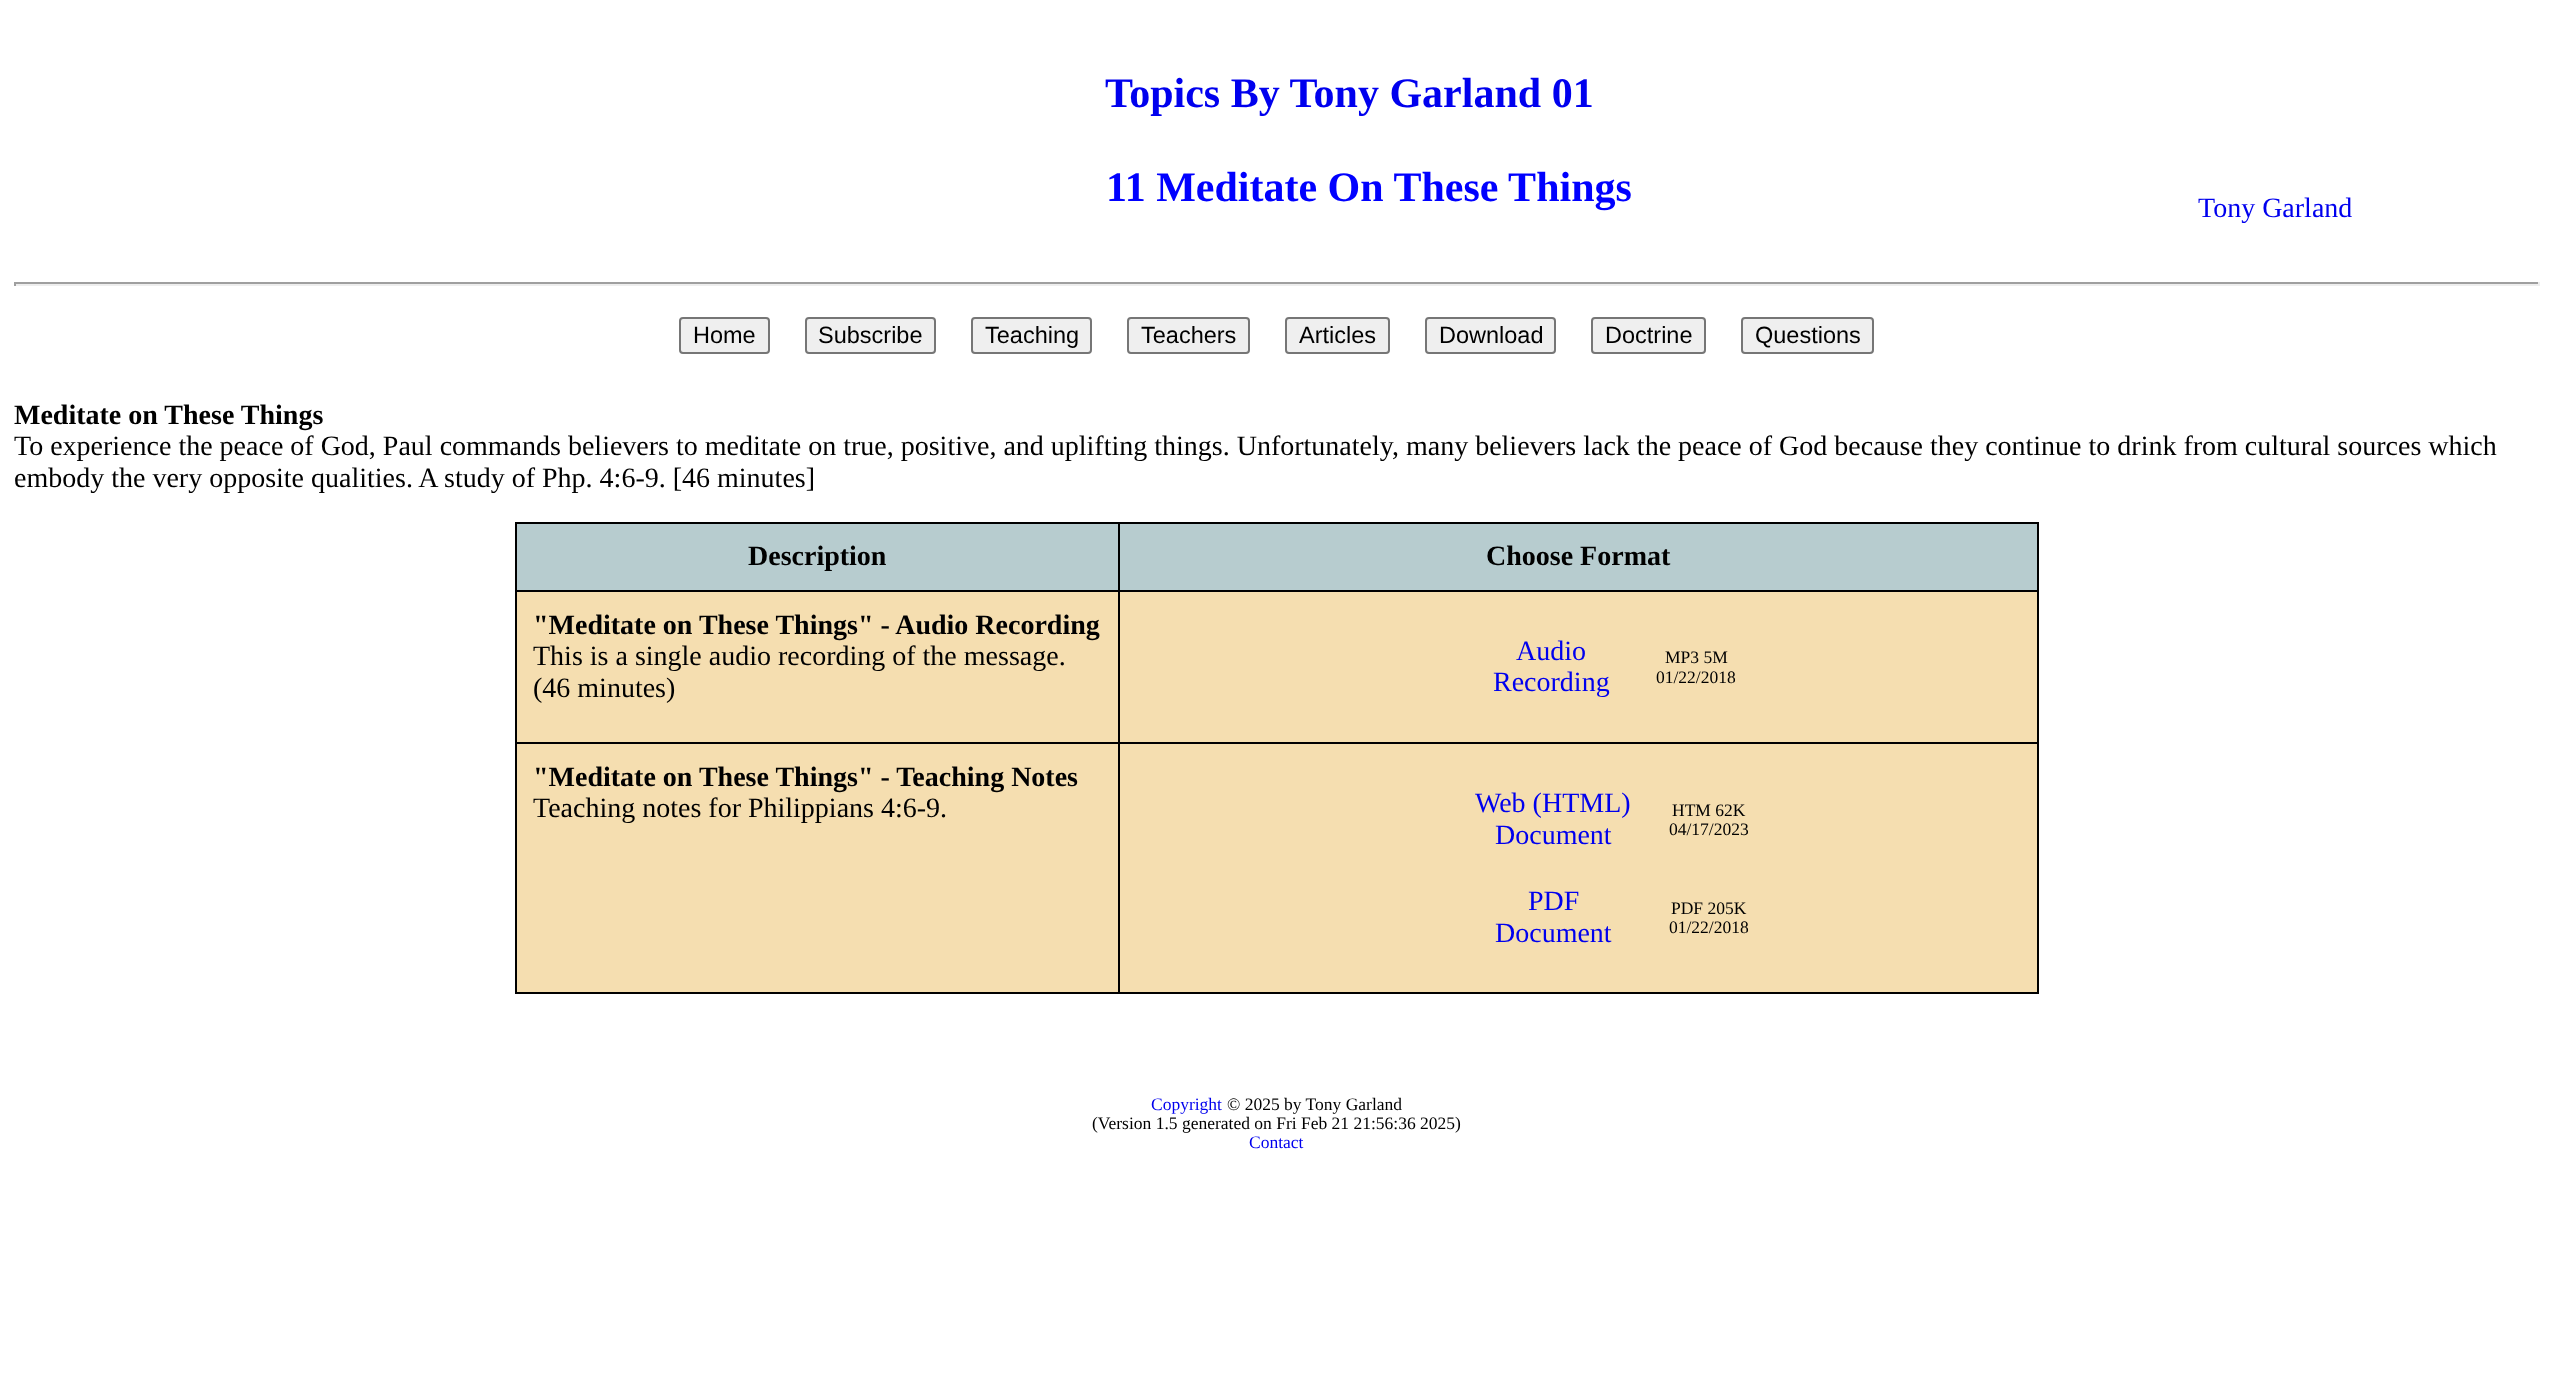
<svg xmlns="http://www.w3.org/2000/svg" width="2552" height="1380">
<style>
.a{font:bold 42px Liberation Serif;fill:#00e}
.b{font:bold 42px Liberation Serif;fill:#00f}
.c{font:28px Liberation Serif;fill:#00e}
.d{font:23.5px Liberation Sans;fill:#000}
.e{font:bold 28px Liberation Serif;fill:#000}
.f{font:28px Liberation Serif;fill:#000}
.g{font:17.5px Liberation Serif;fill:#000}
.h{font:17.5px Liberation Serif;fill:#00e}
</style>
<rect width="100%" height="100%" fill="#fff"/>
<path fill="#9f9f9f" d="M14 282h2525v2H14z"/>
<path fill="#eee" d="M2538 282h2v4H2538z"/>
<path fill="#eee" d="M14 284h2525v2H14z"/>
<path fill="#9f9f9f" d="M14 282h2v4H14z"/>
<rect fill="#efefef" stroke="#767676" stroke-width="2" x="680" y="318" width="89" height="35" rx="3"/>
<rect fill="#efefef" stroke="#767676" stroke-width="2" x="806" y="318" width="129" height="35" rx="3"/>
<rect fill="#efefef" stroke="#767676" stroke-width="2" x="972" y="318" width="119" height="35" rx="3"/>
<rect fill="#efefef" stroke="#767676" stroke-width="2" x="1128" y="318" width="121" height="35" rx="3"/>
<rect fill="#efefef" stroke="#767676" stroke-width="2" x="1286" y="318" width="103" height="35" rx="3"/>
<rect fill="#efefef" stroke="#767676" stroke-width="2" x="1426" y="318" width="129" height="35" rx="3"/>
<rect fill="#efefef" stroke="#767676" stroke-width="2" x="1592" y="318" width="113" height="35" rx="3"/>
<rect fill="#efefef" stroke="#767676" stroke-width="2" x="1742" y="318" width="131" height="35" rx="3"/>
<path fill="#f5deb0" d="M517 592h1520v400H517z"/>
<path fill="#000" d="M515 522h1524v2H515z"/>
<path fill="#000" d="M2037 522h2v472H2037z"/>
<path fill="#000" d="M515 992h1524v2H515z"/>
<path fill="#000" d="M515 522h2v472H515z"/>
<path fill="#b7cccf" d="M517 524h1520v66H517z"/>
<path fill="#000" d="M1118 590h921v2H1118z"/>
<path fill="#000" d="M1118 742h921v2H1118z"/>
<path fill="#000" d="M1118 742h2v252H1118z"/>
<path fill="#000" d="M515 742h605v2H515z"/>
<path fill="#000" d="M1118 590h2v154H1118z"/>
<path fill="#000" d="M515 590h605v2H515z"/>
<path fill="#000" d="M1118 522h2v70H1118z"/>
<text class="a" x="1105" y="107">Topics By Tony Garland 01</text>
<text class="b" x="1106" y="201">11 Meditate On These Things</text>
<text class="c" x="2198" y="217">Tony Garland</text>
<text class="d" x="693" y="343">Home</text>
<text class="d" x="818" y="343">Subscribe</text>
<text class="d" x="985" y="343">Teaching</text>
<text class="d" x="1141" y="343">Teachers</text>
<text class="d" x="1299" y="343">Articles</text>
<text class="d" x="1439" y="343">Download</text>
<text class="d" x="1605" y="343">Doctrine</text>
<text class="d" x="1755" y="343">Questions</text>
<text class="e" x="14" y="424">Meditate on These Things</text>
<text class="f" x="14" y="455">To experience the peace of God, Paul commands believers to meditate on true, positive, and uplifting things. Unfortunately, many believers lack the peace of God because they continue to drink from cultural sources which</text>
<text class="f" x="14" y="487">embody the very opposite qualities. A study of Php. 4:6-9. [46 minutes]</text>
<text class="e" x="748" y="565">Description</text>
<text class="e" x="1486" y="565">Choose Format</text>
<text class="e" x="533" y="634">"Meditate on These Things" - Audio Recording</text>
<text class="f" x="533" y="665">This is a single audio recording of the message.</text>
<text class="f" x="533" y="697">(46 minutes)</text>
<text class="c" x="1516" y="660">Audio</text>
<text class="c" x="1493" y="691">Recording</text>
<text class="g" x="1665" y="663">MP3 5M</text>
<text class="g" x="1656" y="683">01/22/2018</text>
<text class="e" x="533" y="786">"Meditate on These Things" - Teaching Notes</text>
<text class="f" x="533" y="817">Teaching notes for Philippians 4:6-9.</text>
<text class="c" x="1475" y="812">Web (HTML)</text>
<text class="c" x="1495" y="844">Document</text>
<text class="g" x="1672" y="816">HTM 62K</text>
<text class="g" x="1669" y="835">04/17/2023</text>
<text class="c" x="1528" y="910">PDF</text>
<text class="c" x="1495" y="942">Document</text>
<text class="g" x="1671" y="914">PDF 205K</text>
<text class="g" x="1669" y="933">01/22/2018</text>
<text class="h" x="1151" y="1110">Copyright</text>
<text class="g" x="1227" y="1110">© 2025 by Tony Garland</text>
<text class="g" x="1092" y="1129">(Version 1.5 generated on Fri Feb 21 21:56:36 2025)</text>
<text class="h" x="1249" y="1148">Contact</text>
</svg>
